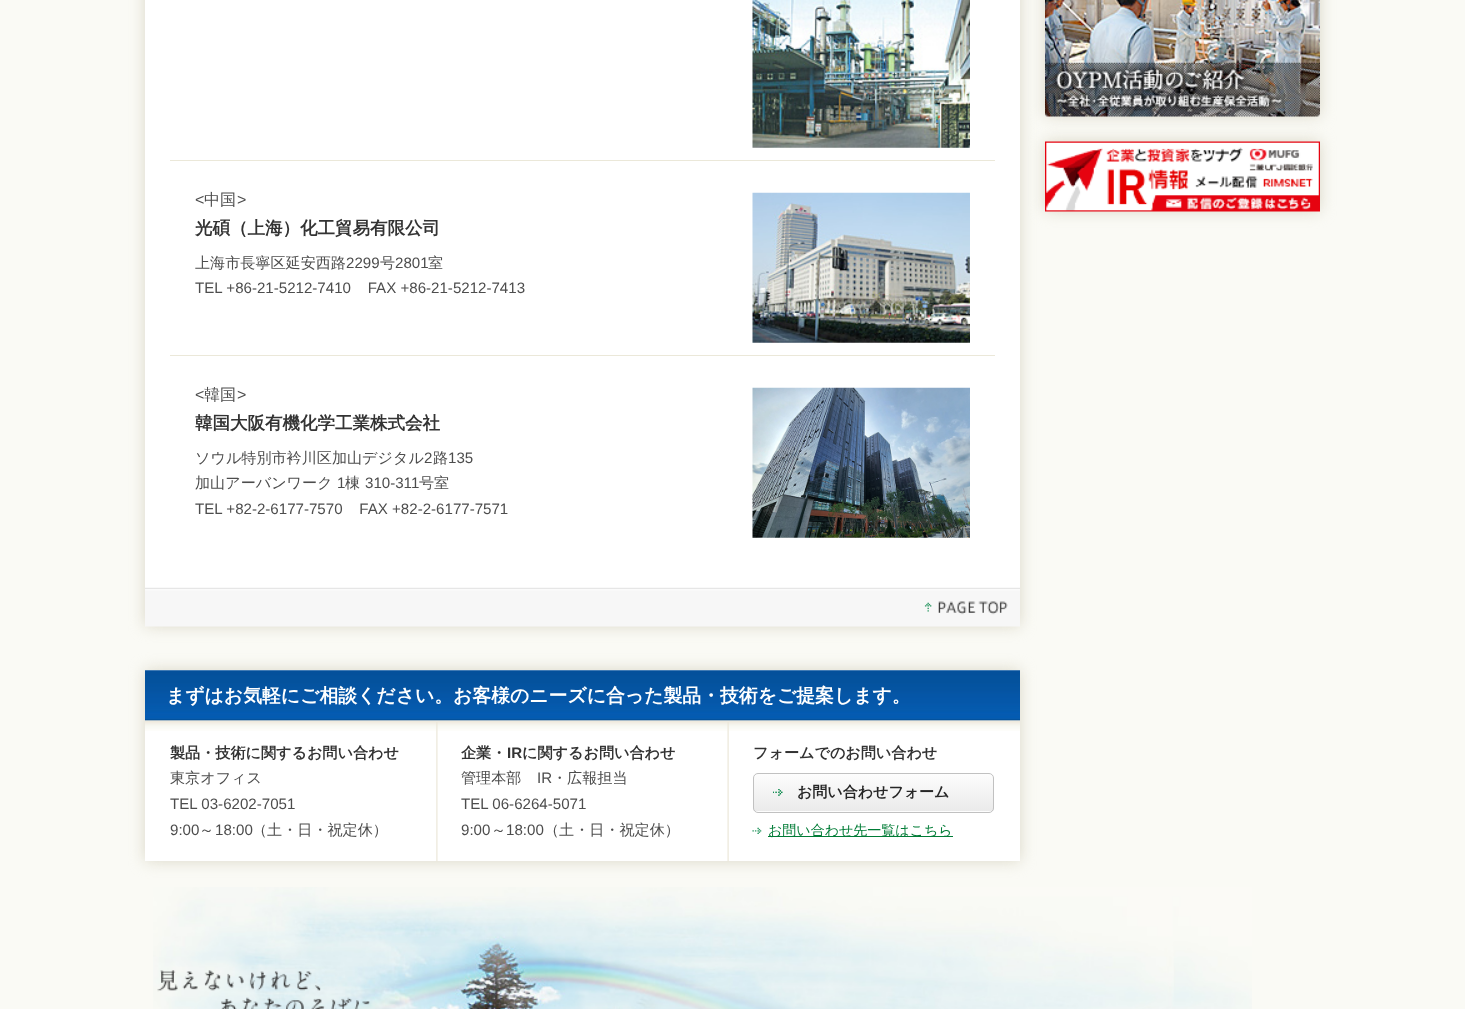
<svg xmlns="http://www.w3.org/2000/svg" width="1465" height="1009">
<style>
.a{font:16px Liberation Sans;fill:#4d4d4d}
.b{font:500 16px WenQuanYi Zen Hei;fill:#4d4d4d}
.c{font:bold 17.5px WenQuanYi Zen Hei;fill:#333}
.d{font:500 15.1px WenQuanYi Zen Hei;fill:#4d4d4d}
.e{font:15.1px Liberation Sans;fill:#4d4d4d}
.f{font:bold 18.85px WenQuanYi Zen Hei;fill:#fff}
.g{font:bold 15.1px WenQuanYi Zen Hei;fill:#333}
.h{font:bold 15.1px Liberation Sans;fill:#333}
.i{font:bold 15px WenQuanYi Zen Hei;fill:#262626}
.j{font:500 14px WenQuanYi Zen Hei;fill:#007c36}
</style>
<defs>
<clipPath id="clip1"><rect x="753" y="773" width="241" height="40" rx="5"/></clipPath>
<linearGradient id="g1" gradientUnits="userSpaceOnUse" x1="873" y1="811" x2="873" y2="774"><stop offset="0" stop-color="#eaeaea"/><stop offset="1" stop-color="#fdfdfd"/></linearGradient>
<linearGradient id="g2" gradientUnits="userSpaceOnUse" x1="873" y1="849" x2="873" y2="811"><stop offset="0" stop-color="#eaeaea"/><stop offset="1" stop-color="#fdfdfd"/></linearGradient>
</defs>
<rect width="100%" height="100%" fill="#fafaf5"/>
<path fill="#dbd8c8" filter="blur(7.5px)" d="M1045 -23h275v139H1045z"/>
<image href="1.png" x="1045" y="0" width="275" height="117"/>
<path fill="#dbd8c8" filter="blur(7.5px)" d="M1045 141h275v70H1045z"/>
<image href="2.png" x="1045" y="141" width="275" height="71"/>
<path fill="#dbd8c8" filter="blur(7.5px)" d="M145 -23h875v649H145z"/>
<path fill="#fff" d="M145 0h875v588H145z"/>
<path fill="#ebe8d9" d="M170 160h825v1H170z"/>
<image href="3.png" x="752" y="0" width="218" height="148"/>
<path fill="#ebe8d9" d="M170 355h825v1H170z"/>
<image href="4.png" x="752" y="192" width="218" height="151"/>
<image href="5.png" x="752" y="387" width="218" height="151"/>
<image href="6.png" x="145" y="587" width="875" height="40"/>
<path fill="#dbd8c8" filter="blur(7.5px)" d="M145 670h875v191H145z"/>
<path fill="#fff" d="M145 670h875v191H145z"/>
<image href="7.png" x="145" y="670" width="875" height="61"/>
<image href="8.png" x="436" y="722" width="293" height="140"/>
<g clip-path="url(#clip1)">
<path fill="url(#g1)" d="M753 774h241v37H753z"/>
<path fill="url(#g2)" d="M753 811h241v2H753z"/>
</g>
<rect fill="none" stroke="#c1c1c1" x="753.5" y="773.5" width="240" height="39" rx="4.5"/>
<image href="9.png" x="773" y="789" width="10" height="7"/>
<image href="10.png" x="752" y="827" width="10" height="7"/>
<path fill="#007c36" d="M768 836h185v1H768z"/>
<image href="11.png" x="153" y="887" width="1099" height="122"/>
<image href="12.png" x="157" y="970" width="213" height="39"/>
<text class="a" x="195" y="205">&lt;</text>
<text class="b" x="204" y="205">中国</text>
<text class="a" x="237" y="205">&gt;</text>
<text class="c" x="195" y="234">光碩（上海）化工貿易有限公司</text>
<text class="d" x="195" y="268">上海市長寧区延安西路</text>
<text class="e" x="346" y="268">2299</text>
<text class="d" x="380" y="268">号</text>
<text class="e" x="395" y="268">2801</text>
<text class="d" x="428" y="268">室</text>
<text class="e" xml:space="preserve" x="195" y="293">TEL +86-21-5212-7410    FAX +86-21-5212-7413</text>
<text class="a" x="195" y="400">&lt;</text>
<text class="b" x="204" y="400">韓国</text>
<text class="a" x="237" y="400">&gt;</text>
<text class="c" x="195" y="429">韓国大阪有機化学工業株式会社</text>
<text class="d" x="195" y="463">ソウル特別市衿川区加山デジタル</text>
<text class="e" x="424" y="463">2</text>
<text class="d" x="433" y="463">路</text>
<text class="e" x="448" y="463">135</text>
<text class="d" x="195" y="488">加山アーバンワーク</text>
<text class="e" x="337" y="488">1</text>
<text class="d" x="345" y="488">棟</text>
<text class="e" x="365" y="488">310-311</text>
<text class="d" x="419" y="488">号室</text>
<text class="e" xml:space="preserve" x="195" y="514">TEL +82-2-6177-7570    FAX +82-2-6177-7571</text>
<text class="f" x="166" y="702">まずはお気軽にご相談ください。お客様のニーズに合った製品・技術をご提案します。</text>
<text class="g" x="170" y="758">製品・技術に関するお問い合わせ</text>
<text class="d" x="170" y="783">東京オフィス</text>
<text class="e" x="170" y="809">TEL 03-6202-7051</text>
<text class="e" x="170" y="835">9:00</text>
<text class="d" x="199" y="835">～</text>
<text class="e" x="215" y="835">18:00</text>
<text class="d" x="252" y="835">（土・日・祝定休）</text>
<text class="g" x="461" y="758">企業・</text>
<text class="h" x="507" y="758">IR</text>
<text class="g" x="522" y="758">に関するお問い合わせ</text>
<text class="d" x="461" y="783">管理本部</text>
<text class="e" x="537" y="783">IR</text>
<text class="d" x="552" y="783">・広報担当</text>
<text class="e" x="461" y="809">TEL 06-6264-5071</text>
<text class="e" x="461" y="835">9:00</text>
<text class="d" x="491" y="835">～</text>
<text class="e" x="506" y="835">18:00</text>
<text class="d" x="544" y="835">（土・日・祝定休）</text>
<text class="g" x="753" y="758">フォームでのお問い合わせ</text>
<text class="i" x="797" y="797">お問い合わせフォーム</text>
<text class="j" x="768" y="835">お問い合わせ先一覧はこちら</text>
</svg>
